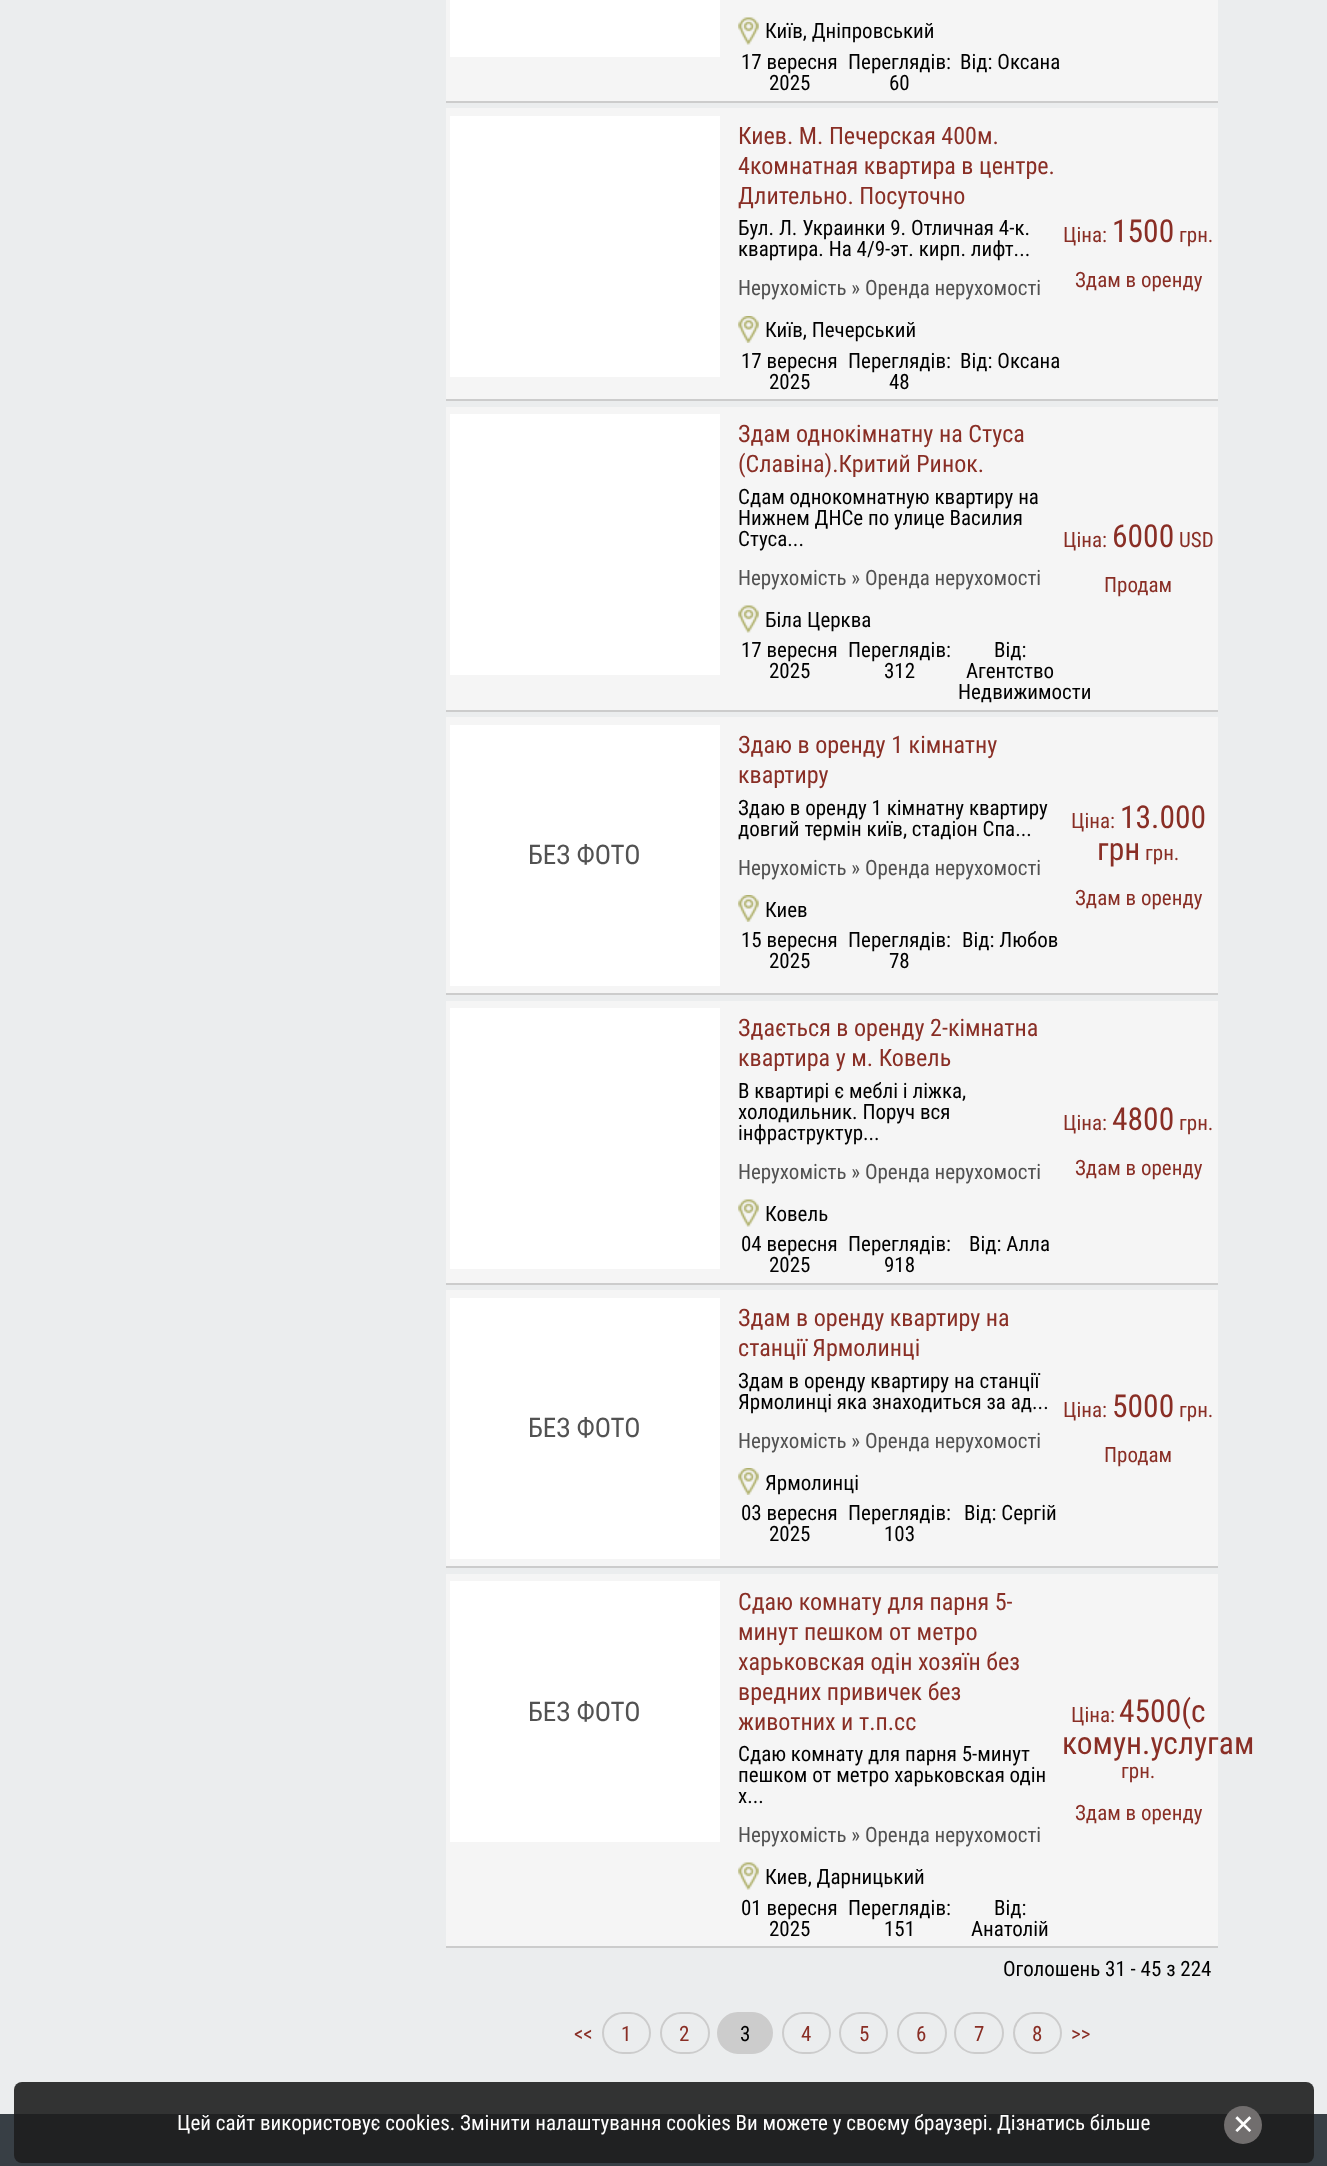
<svg xmlns="http://www.w3.org/2000/svg" width="1327" height="2166">
<style>
.a{font:21px Roboto Condensed;fill:#000}
.b{font:24.1px Roboto Condensed;fill:#892e25}
.c{font:21px Roboto Condensed;fill:#525252}
.d{font:21px Roboto Condensed;fill:#892e25}
.e{font:31.5px Roboto Condensed;fill:#892e25}
.f{font:27px Roboto Condensed;fill:#525252}
.g{font:21px Roboto Condensed;fill:#fff}
.h{font:27px DejaVu Sans;fill:#fff}
</style>
<rect width="100%" height="100%" fill="#ebedee"/>
<path fill="#f5f5f5" d="M446 0h772v101H446z"/>
<path fill="#ccc" d="M446 101h772v2H446z"/>
<path fill="#fff" d="M450 0h270v57H450z"/>
<image href="1.png" x="738" y="17" width="21" height="28"/>
<path fill="#f5f5f5" d="M446 108h772v291H446z"/>
<path fill="#ccc" d="M446 399h772v2H446z"/>
<path fill="#fff" d="M450 116h270v261H450z"/>
<image href="2.png" x="738" y="316" width="21" height="27"/>
<path fill="#f5f5f5" d="M446 407h772v303H446z"/>
<path fill="#ccc" d="M446 710h772v2H446z"/>
<path fill="#fff" d="M450 414h270v261H450z"/>
<image href="1.png" x="738" y="605" width="21" height="28"/>
<path fill="#f5f5f5" d="M446 717h772v276H446z"/>
<path fill="#ccc" d="M446 993h772v2H446z"/>
<path fill="#fff" d="M450 725h270v261H450z"/>
<image href="2.png" x="738" y="895" width="21" height="27"/>
<path fill="#f5f5f5" d="M446 1001h772v282H446z"/>
<path fill="#ccc" d="M446 1283h772v2H446z"/>
<path fill="#fff" d="M450 1008h270v261H450z"/>
<image href="1.png" x="738" y="1199" width="21" height="28"/>
<path fill="#f5f5f5" d="M446 1290h772v276H446z"/>
<path fill="#ccc" d="M446 1566h772v2H446z"/>
<path fill="#fff" d="M450 1298h270v261H450z"/>
<image href="2.png" x="738" y="1468" width="21" height="27"/>
<path fill="#f5f5f5" d="M446 1574h772v372H446z"/>
<path fill="#ccc" d="M446 1946h772v2H446z"/>
<path fill="#fff" d="M450 1581h270v261H450z"/>
<image href="1.png" x="738" y="1862" width="21" height="28"/>
<rect fill="none" stroke="#ccc" stroke-width="2" x="603" y="2013" width="47" height="40" rx="20"/>
<rect fill="none" stroke="#ccc" stroke-width="2" x="661" y="2013" width="48" height="40" rx="20"/>
<rect fill="#ccc" stroke="#ccc" stroke-width="2" x="718" y="2013" width="54" height="40" rx="20"/>
<rect fill="none" stroke="#ccc" stroke-width="2" x="783" y="2013" width="47" height="40" rx="20"/>
<rect fill="none" stroke="#ccc" stroke-width="2" x="840" y="2013" width="47" height="40" rx="20"/>
<rect fill="none" stroke="#ccc" stroke-width="2" x="898" y="2013" width="48" height="40" rx="20"/>
<rect fill="none" stroke="#ccc" stroke-width="2" x="955" y="2013" width="48" height="40" rx="20"/>
<rect fill="none" stroke="#ccc" stroke-width="2" x="1014" y="2013" width="47" height="40" rx="20"/>
<path fill="#383f45" d="M0 2114h1327v52H0z"/>
<rect fill="#1e1e1ee6" x="14" y="2082" width="1300" height="81" rx="8"/>
<circle fill="#716e6e" cx="1243" cy="2125" r="19"/>
<text class="a" x="765" y="38">Київ, Дніпровський</text>
<text class="a" x="741" y="69">17 вересня</text>
<text class="a" x="769" y="90">2025</text>
<text class="a" x="848" y="69">Переглядів:</text>
<text class="a" x="889" y="90">60</text>
<text class="a" x="960" y="69">Від: Оксана</text>
<text class="b" x="738" y="144">Киев. М. Печерская 400м.</text>
<text class="b" x="738" y="174">4комнатная квартира в центре.</text>
<text class="b" x="738" y="204">Длительно. Посуточно</text>
<text class="a" x="738" y="235">Бул. Л. Украинки 9. Отличная 4-к.</text>
<text class="a" x="738" y="256">квартира. На 4/9-эт. кирп. лифт...</text>
<text class="c" x="738" y="295">Нерухомість » Оренда нерухомості</text>
<text class="a" x="765" y="337">Київ, Печерський</text>
<text class="a" x="741" y="368">17 вересня</text>
<text class="a" x="769" y="389">2025</text>
<text class="a" x="848" y="368">Переглядів:</text>
<text class="a" x="889" y="389">48</text>
<text class="a" x="960" y="368">Від: Оксана</text>
<text class="d" x="1063" y="242">Ціна:</text>
<text class="e" x="1112" y="242">1500</text>
<text class="d" x="1179" y="242">грн.</text>
<text class="d" x="1075" y="287">Здам в оренду</text>
<text class="b" x="738" y="442">Здам однокімнатну на Стуса</text>
<text class="b" x="738" y="472">(Славіна).Критий Ринок.</text>
<text class="a" x="738" y="504">Сдам однокомнатную квартиру на</text>
<text class="a" x="738" y="525">Нижнем ДНСе по улице Василия</text>
<text class="a" x="738" y="546">Стуса...</text>
<text class="c" x="738" y="585">Нерухомість » Оренда нерухомості</text>
<text class="a" x="765" y="627">Біла Церква</text>
<text class="a" x="741" y="657">17 вересня</text>
<text class="a" x="769" y="678">2025</text>
<text class="a" x="848" y="657">Переглядів:</text>
<text class="a" x="884" y="678">312</text>
<text class="a" x="994" y="657">Від:</text>
<text class="a" x="966" y="678">Агентство</text>
<text class="a" x="958" y="699">Недвижимости</text>
<text class="d" x="1063" y="547">Ціна:</text>
<text class="e" x="1112" y="547">6000</text>
<text class="d" x="1179" y="547">USD</text>
<text class="d" x="1104" y="592">Продам</text>
<text class="f" x="528" y="864">БЕЗ ФОТО</text>
<text class="b" x="738" y="753">Здаю в оренду 1 кімнатну</text>
<text class="b" x="738" y="783">квартиру</text>
<text class="a" x="738" y="815">Здаю в оренду 1 кімнатну квартиру</text>
<text class="a" x="738" y="836">довгий термін київ, стадіон Спа...</text>
<text class="c" x="738" y="875">Нерухомість » Оренда нерухомості</text>
<text class="a" x="765" y="917">Киев</text>
<text class="a" x="741" y="947">15 вересня</text>
<text class="a" x="769" y="968">2025</text>
<text class="a" x="848" y="947">Переглядів:</text>
<text class="a" x="889" y="968">78</text>
<text class="a" x="962" y="947">Від: Любов</text>
<text class="d" x="1071" y="828">Ціна:</text>
<text class="e" x="1120" y="828">13.000</text>
<text class="e" x="1097" y="860">грн</text>
<text class="d" x="1145" y="860">грн.</text>
<text class="d" x="1075" y="905">Здам в оренду</text>
<text class="b" x="738" y="1036">Здається в оренду 2-кімнатна</text>
<text class="b" x="738" y="1066">квартира у м. Ковель</text>
<text class="a" x="738" y="1098">В квартирі є меблі і ліжка,</text>
<text class="a" x="738" y="1119">холодильник. Поруч вся</text>
<text class="a" x="738" y="1140">інфраструктур...</text>
<text class="c" x="738" y="1179">Нерухомість » Оренда нерухомості</text>
<text class="a" x="765" y="1221">Ковель</text>
<text class="a" x="741" y="1251">04 вересня</text>
<text class="a" x="769" y="1272">2025</text>
<text class="a" x="848" y="1251">Переглядів:</text>
<text class="a" x="884" y="1272">918</text>
<text class="a" x="969" y="1251">Від: Алла</text>
<text class="d" x="1063" y="1130">Ціна:</text>
<text class="e" x="1112" y="1130">4800</text>
<text class="d" x="1179" y="1130">грн.</text>
<text class="d" x="1075" y="1175">Здам в оренду</text>
<text class="f" x="528" y="1437">БЕЗ ФОТО</text>
<text class="b" x="738" y="1326">Здам в оренду квартиру на</text>
<text class="b" x="738" y="1356">станції Ярмолинці</text>
<text class="a" x="738" y="1388">Здам в оренду квартиру на станції</text>
<text class="a" x="738" y="1409">Ярмолинці яка знаходиться за ад...</text>
<text class="c" x="738" y="1448">Нерухомість » Оренда нерухомості</text>
<text class="a" x="765" y="1490">Ярмолинці</text>
<text class="a" x="741" y="1520">03 вересня</text>
<text class="a" x="769" y="1541">2025</text>
<text class="a" x="848" y="1520">Переглядів:</text>
<text class="a" x="884" y="1541">103</text>
<text class="a" x="964" y="1520">Від: Сергій</text>
<text class="d" x="1063" y="1417">Ціна:</text>
<text class="e" x="1112" y="1417">5000</text>
<text class="d" x="1179" y="1417">грн.</text>
<text class="d" x="1104" y="1462">Продам</text>
<text class="f" x="528" y="1721">БЕЗ ФОТО</text>
<text class="b" x="738" y="1610">Сдаю комнату для парня 5-</text>
<text class="b" x="738" y="1640">минут пешком от метро</text>
<text class="b" x="738" y="1670">харьковская одін хозяїн без</text>
<text class="b" x="738" y="1700">вредних привичек без</text>
<text class="b" x="738" y="1730">животних и т.п.сс</text>
<text class="a" x="738" y="1761">Сдаю комнату для парня 5-минут</text>
<text class="a" x="738" y="1782">пешком от метро харьковская одін</text>
<text class="a" x="738" y="1803">х...</text>
<text class="c" x="738" y="1842">Нерухомість » Оренда нерухомості</text>
<text class="a" x="765" y="1884">Киев, Дарницький</text>
<text class="a" x="741" y="1915">01 вересня</text>
<text class="a" x="769" y="1936">2025</text>
<text class="a" x="848" y="1915">Переглядів:</text>
<text class="a" x="884" y="1936">151</text>
<text class="a" x="994" y="1915">Від:</text>
<text class="a" x="971" y="1936">Анатолій</text>
<text class="d" x="1071" y="1722">Ціна:</text>
<text class="e" x="1119" y="1722">4500(с</text>
<text class="e" x="1062" y="1754">комун.услугам</text>
<text class="d" x="1121" y="1778">грн.</text>
<text class="d" x="1075" y="1820">Здам в оренду</text>
<text class="a" x="1003" y="1976">Оголошень 31 - 45 з 224</text>
<text class="d" x="574" y="2041">&lt;&lt;</text>
<text class="d" x="621" y="2041">1</text>
<text class="d" x="679" y="2041">2</text>
<text class="a" x="740" y="2041">3</text>
<text class="d" x="801" y="2041">4</text>
<text class="d" x="859" y="2041">5</text>
<text class="d" x="916" y="2041">6</text>
<text class="d" x="974" y="2041">7</text>
<text class="d" x="1032" y="2041">8</text>
<text class="d" x="1071" y="2041">&gt;&gt;</text>
<text class="g" x="177" y="2130">Цей сайт використовує cookies. Змінити налаштування cookies Ви можете у своєму браузері.</text>
<text class="g" x="997" y="2130">Дізнатись більше</text>
<text class="h" x="1232" y="2134">✕</text>
</svg>
